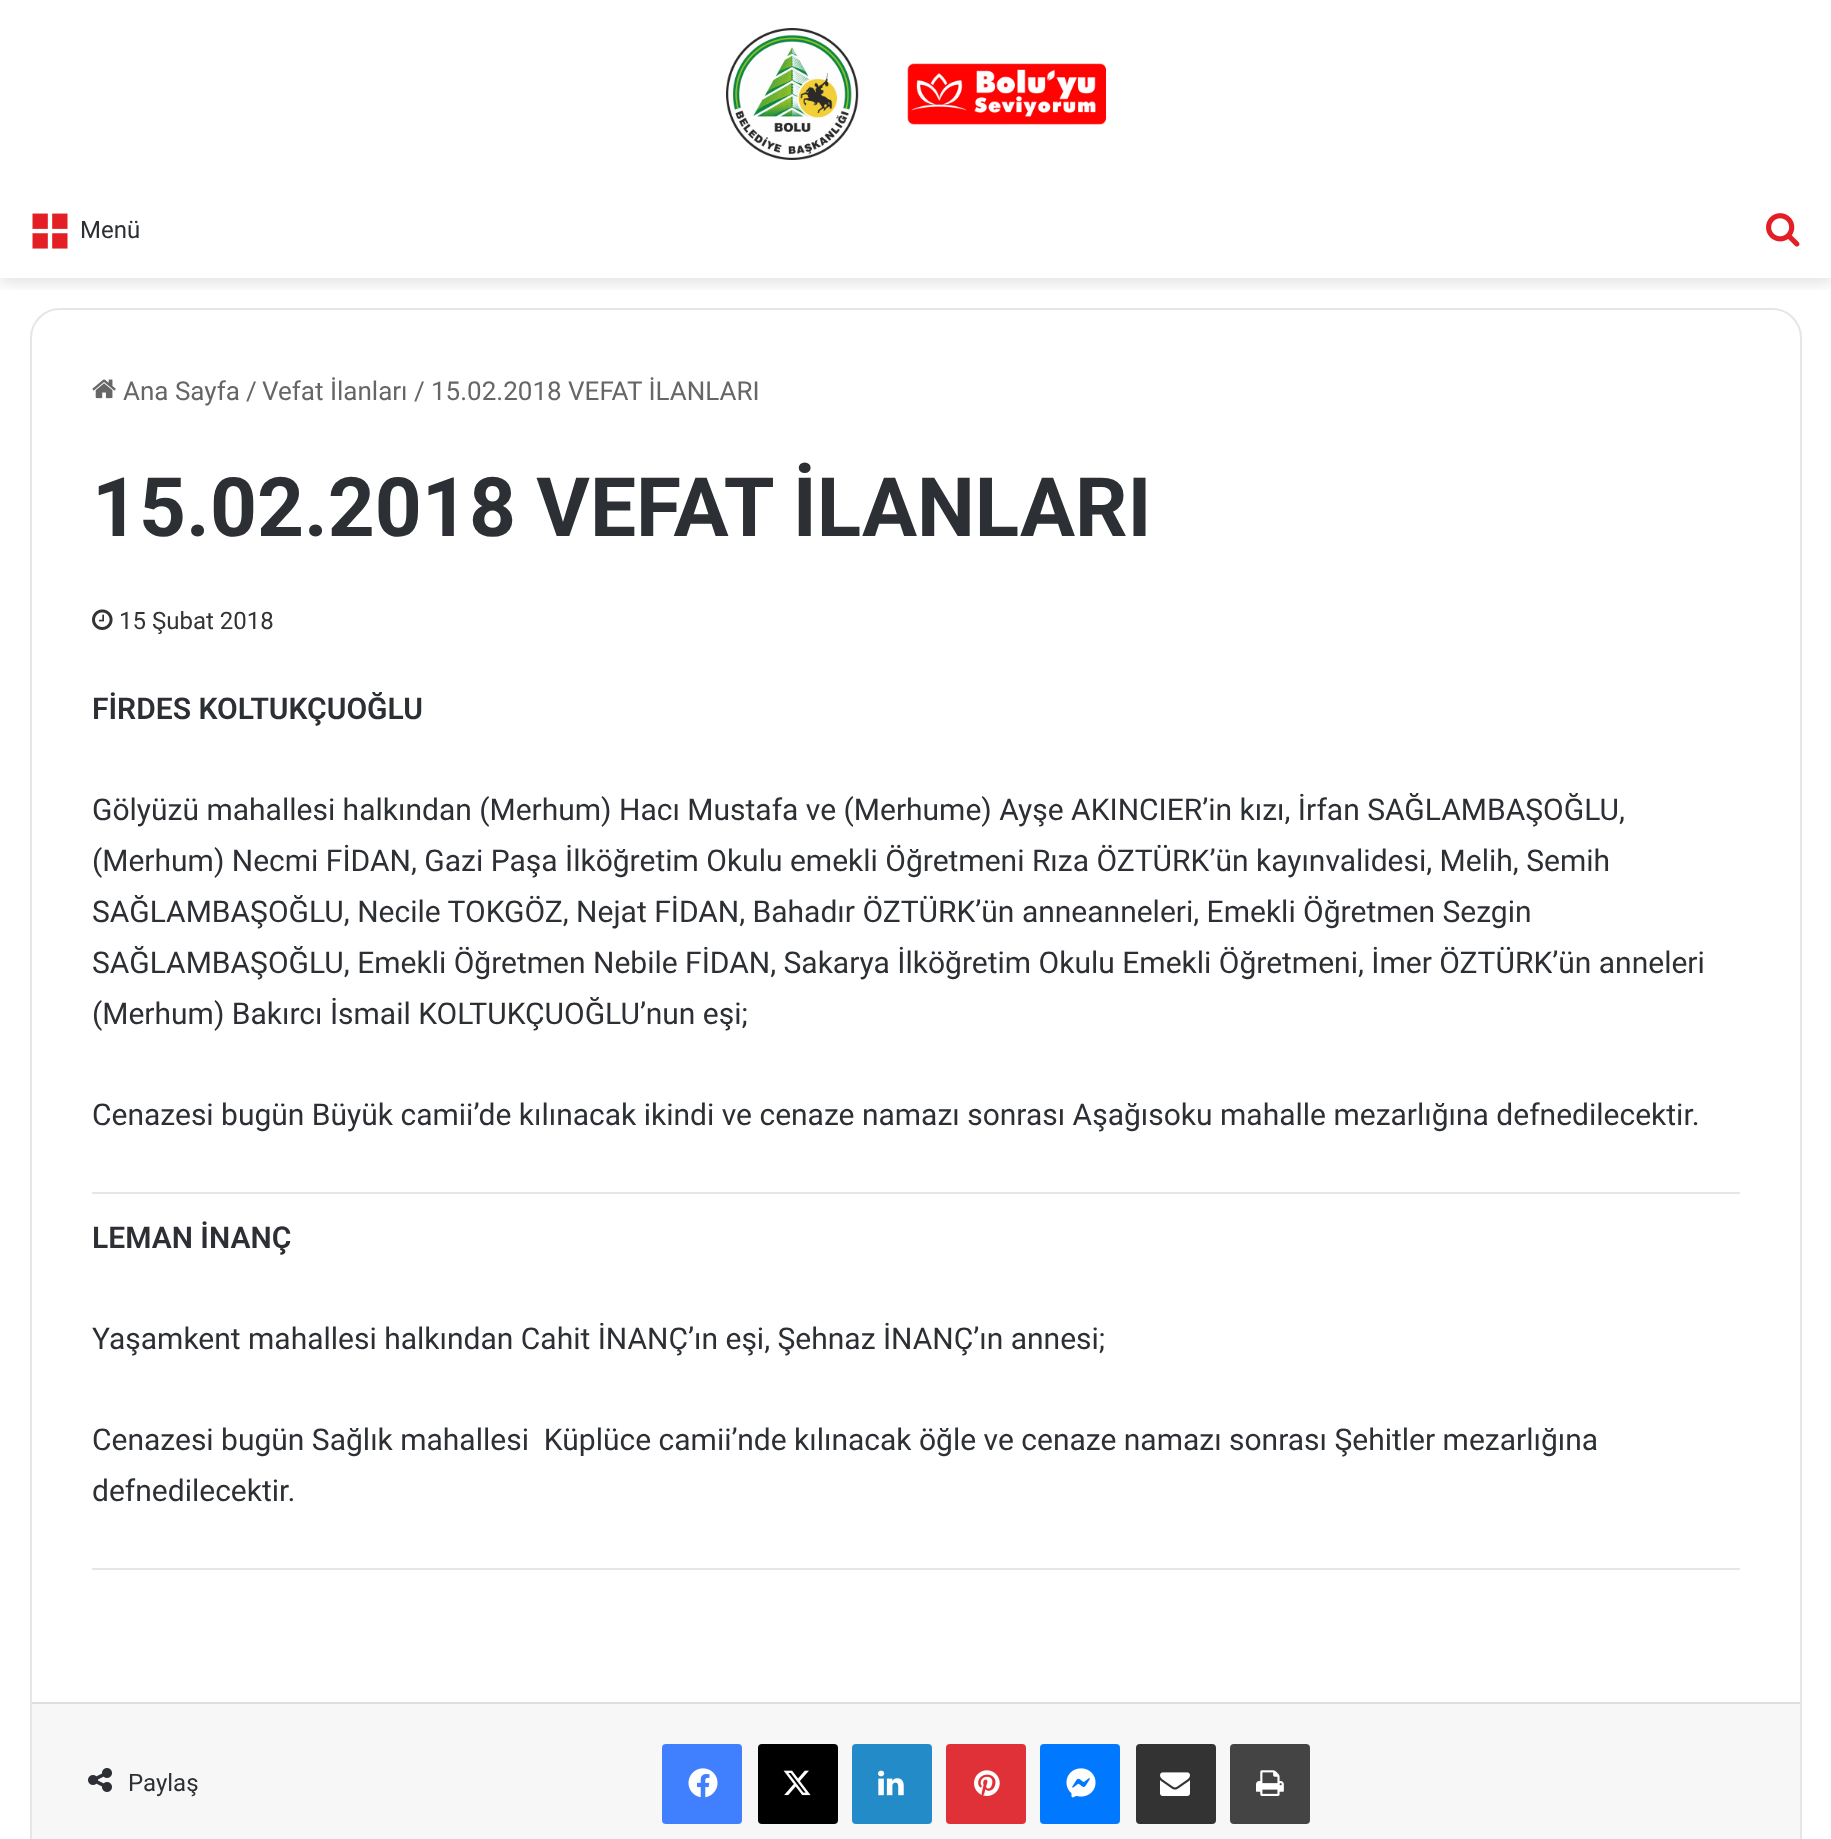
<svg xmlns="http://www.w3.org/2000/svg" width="1831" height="1839">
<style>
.a{font:24px Roboto;fill:#2c2f34}
.b{font:26px Roboto;fill:#666}
.c{font:bold 82px Roboto;fill:#2c2f34}
.d{font:24px Roboto;fill:#333}
.e{font:600 30px Roboto;fill:#2c2f34}
.f{font:30px Roboto;fill:#2c2f34}
</style>
<defs>
<clipPath id="clip1"><path d="M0 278h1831v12H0z"/></clipPath>
</defs>
<rect width="100%" height="100%" fill="#fff"/>
<g clip-path="url(#clip1)">
<path fill="#0000001a" filter="blur(7px)" d="M0 6h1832v278H0z"/>
</g>
<image href="1.png" x="726" y="28" width="380" height="132"/>
<image href="2.png" x="32" y="213" width="36" height="36"/>
<image href="3.png" x="1766" y="213" width="34" height="34"/>
<rect fill="none" stroke="#e5e5e5" stroke-width="2" x="31" y="309" width="1770" height="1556" rx="29"/>
<image href="4.png" x="92" y="379" width="24" height="20"/>
<image href="5.png" x="92" y="609" width="21" height="21"/>
<path fill="#e6e6e6" d="M92 1192h1648v2H92z"/>
<path fill="#e6e6e6" d="M92 1568h1648v2H92z"/>
<path fill="#f7f7f7" d="M32 1702h1768v132c0 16.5-13.5 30-30 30h-1708c-16.5 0-30-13.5-30-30z"/>
<path fill="#dedede" d="M32 1702h1768v2H32z"/>
<image href="6.png" x="88" y="1768" width="24" height="24"/>
<rect fill="#4080ff" x="662" y="1744" width="80" height="80" rx="4"/>
<image href="7.png" x="688" y="1768" width="30" height="30"/>
<rect fill="#000" x="758" y="1744" width="80" height="80" rx="4"/>
<image href="8.png" x="783" y="1770" width="28" height="26"/>
<rect fill="#238cc8" x="852" y="1744" width="80" height="80" rx="4"/>
<image href="9.png" x="878" y="1770" width="26" height="26"/>
<rect fill="#e13138" x="946" y="1744" width="80" height="80" rx="4"/>
<image href="10.png" x="974" y="1770" width="26" height="26"/>
<rect fill="#0078ff" x="1040" y="1744" width="80" height="80" rx="4"/>
<image href="11.png" x="1066" y="1768" width="30" height="30"/>
<rect fill="#333" x="1136" y="1744" width="80" height="80" rx="4"/>
<image href="12.png" x="1160" y="1772" width="30" height="24"/>
<rect fill="#444" x="1230" y="1744" width="80" height="80" rx="4"/>
<image href="13.png" x="1256" y="1770" width="28" height="26"/>
<text class="a" x="80" y="238">Menü</text>
<text class="b" x="123" y="400">Ana Sayfa</text>
<text class="b" x="246" y="400">/</text>
<text class="b" x="262" y="400">Vefat İlanları</text>
<text class="b" x="414" y="400">/</text>
<text class="b" x="431" y="400">15.02.2018 VEFAT İLANLARI</text>
<text class="c" x="92" y="536">15.02.2018 VEFAT İLANLARI</text>
<text class="d" x="119" y="629">15 Şubat 2018</text>
<text class="e" x="92" y="719">FİRDES KOLTUKÇUOĞLU</text>
<text class="f" x="92" y="820">Gölyüzü mahallesi halkından (Merhum) Hacı Mustafa ve (Merhume) Ayşe AKINCIER’in kızı, İrfan SAĞLAMBAŞOĞLU,</text>
<text class="f" x="92" y="871">(Merhum) Necmi FİDAN, Gazi Paşa İlköğretim Okulu emekli Öğretmeni Rıza ÖZTÜRK’ün kayınvalidesi, Melih, Semih</text>
<text class="f" x="92" y="922">SAĞLAMBAŞOĞLU, Necile TOKGÖZ, Nejat FİDAN, Bahadır ÖZTÜRK’ün anneanneleri, Emekli Öğretmen Sezgin</text>
<text class="f" x="92" y="973">SAĞLAMBAŞOĞLU, Emekli Öğretmen Nebile FİDAN, Sakarya İlköğretim Okulu Emekli Öğretmeni, İmer ÖZTÜRK’ün anneleri</text>
<text class="f" x="92" y="1024">(Merhum) Bakırcı İsmail KOLTUKÇUOĞLU’nun eşi;</text>
<text class="f" x="92" y="1125">Cenazesi bugün Büyük camii’de kılınacak ikindi ve cenaze namazı sonrası Aşağısoku mahalle mezarlığına defnedilecektir.</text>
<text class="e" x="92" y="1248">LEMAN İNANÇ</text>
<text class="f" x="92" y="1349">Yaşamkent mahallesi halkından Cahit İNANÇ’ın eşi, Şehnaz İNANÇ’ın annesi;</text>
<text class="f" xml:space="preserve" x="92" y="1450">Cenazesi bugün Sağlık mahallesi  Küplüce camii’nde kılınacak öğle ve cenaze namazı sonrası Şehitler mezarlığına</text>
<text class="f" x="92" y="1501">defnedilecektir.</text>
<text class="a" x="128" y="1791">Paylaş</text>
</svg>
